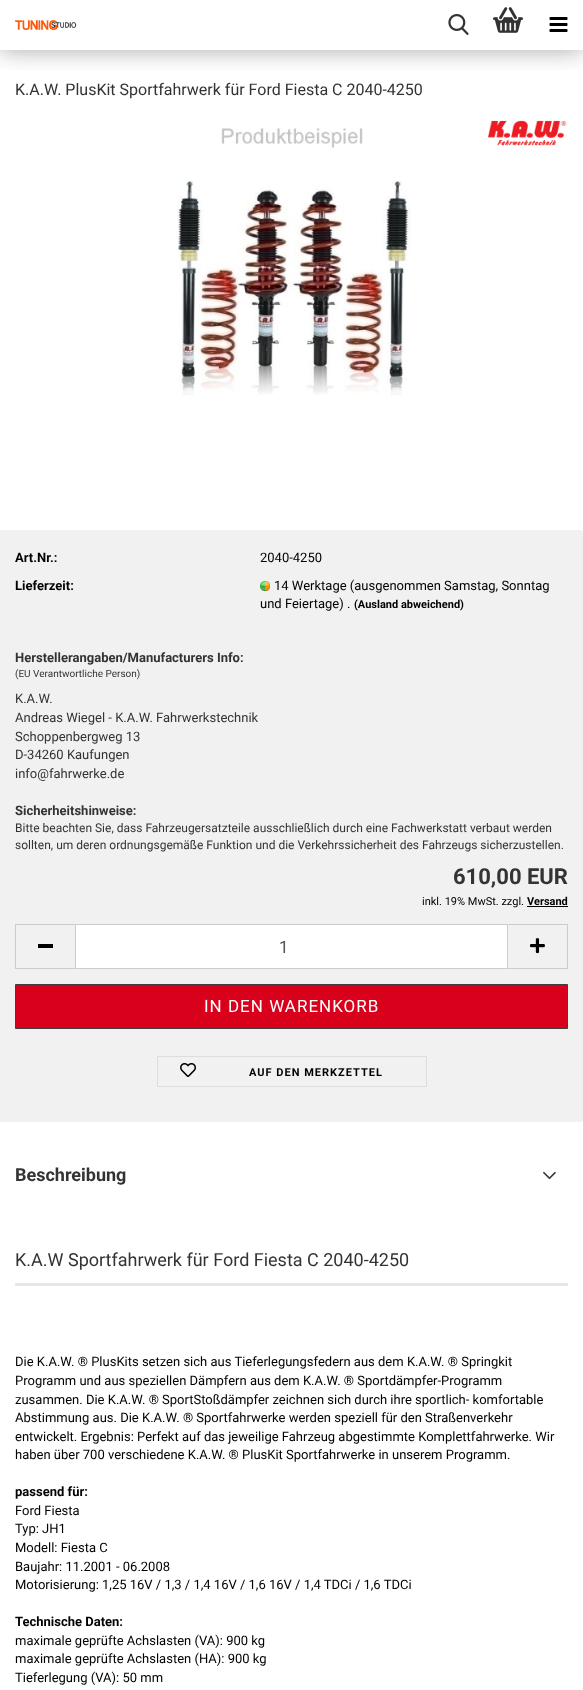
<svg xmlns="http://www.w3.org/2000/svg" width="583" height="1690">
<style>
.a{font:16px Roboto;fill:#333}
.b{font:bold 13px Roboto;fill:#000}
.c{font:13px Roboto;fill:#000}
.d{font:bold 11px Roboto;fill:#000}
.e{font:bold 13px Roboto;fill:#333}
.f{font:10px Roboto;fill:#333}
.g{font:13px Roboto;fill:#333}
.h{font:12px Roboto;fill:#333}
.i{font:bold 22px Roboto;fill:#333}
.j{font:11px Roboto;fill:#000}
.k{font:17px Roboto;fill:#555}
.l{font:17px Roboto;letter-spacing:1px;fill:#fff}
.m{font:bold 11px Roboto;letter-spacing:1px;fill:#000}
.n{font:bold 18px Roboto;fill:#333}
.o{font:18px Roboto;fill:#333}
</style>
<defs>
<clipPath id="clip1"><path d="M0 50h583v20H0z"/></clipPath>
</defs>
<rect width="100%" height="100%" fill="#fff"/>
<g clip-path="url(#clip1)">
<path fill="#00000059" filter="blur(12.5px)" d="M0 0h583v50H0z"/>
</g>
<image href="1.png" x="15" y="20" width="62" height="10"/>
<image href="2.png" x="448" y="14" width="21" height="21"/>
<image href="3.png" x="493" y="7" width="30" height="26"/>
<image href="4.png" x="549" y="17" width="19" height="15"/>
<image href="5.png" x="177" y="128" width="234" height="267"/>
<image href="6.png" x="488" y="120" width="79" height="26"/>
<rect fill="#f1f1f1" y="530" width="583" height="592" rx="2"/>
<image href="7.png" x="260" y="581" width="10" height="10"/>
<path fill="#000" d="M527 906h41v1H527z"/>
<path fill="#ccc" d="M15 924h60v1H15z"/>
<path fill="#ccc" d="M15 968h60v1H15z"/>
<path fill="#ccc" d="M15 924h1v45H15z"/>
<path fill="#000" d="M38 944h15v4H38z"/>
<path fill="#fff" stroke="#ccc" d="M75.5 924.5h432v44H75.5z"/>
<path fill="#ccc" d="M508 924h60v1H508z"/>
<path fill="#ccc" d="M567 924h1v45H567z"/>
<path fill="#ccc" d="M508 968h60v1H508z"/>
<image href="8.png" x="530" y="938" width="15" height="16"/>
<path fill="#d8001a" stroke="#3f3f3f" d="M15.5 984.5h552v44H15.5z"/>
<path fill="none" stroke="#ddd" d="M157.5 1056.5h269v30H157.5z"/>
<image href="9.png" x="180" y="1063" width="16" height="14"/>
<image href="10.png" x="543" y="1171" width="13" height="8"/>
<path fill="#e7e7e7" d="M15 1283h553v3H15z"/>
<text class="a" x="15" y="95">K.A.W. PlusKit Sportfahrwerk für Ford Fiesta C 2040-4250</text>
<text class="b" x="15" y="562">Art.Nr.:</text>
<text class="c" x="260" y="562">2040-4250</text>
<text class="b" x="15" y="590">Lieferzeit:</text>
<text class="c" x="274" y="590">14 Werktage (ausgenommen Samstag, Sonntag</text>
<text class="c" x="260" y="608">und Feiertage) .</text>
<text class="d" x="354" y="608">(Ausland abweichend)</text>
<text class="e" x="15" y="662">Herstellerangaben/Manufacturers Info:</text>
<text class="f" x="15" y="677">(EU Verantwortliche Person)</text>
<text class="g" x="15" y="703">K.A.W.</text>
<text class="g" x="15" y="722">Andreas Wiegel - K.A.W. Fahrwerkstechnik</text>
<text class="g" x="15" y="741">Schoppenbergweg 13</text>
<text class="g" x="15" y="759">D-34260 Kaufungen</text>
<text class="g" x="15" y="778">info@fahrwerke.de</text>
<text class="e" x="15" y="815">Sicherheitshinweise:</text>
<text class="h" x="15" y="832">Bitte beachten Sie, dass Fahrzeugersatzteile ausschließlich durch eine Fachwerkstatt verbaut werden</text>
<text class="h" x="15" y="849">sollten, um deren ordnungsgemäße Funktion und die Verkehrssicherheit des Fahrzeugs sicherzustellen.</text>
<text class="i" x="453" y="884">610,00 EUR</text>
<text class="j" x="422" y="905">inkl. 19% MwSt. zzgl.</text>
<text class="d" x="527" y="905">Versand</text>
<text class="k" x="279" y="953">1</text>
<text class="l" x="204" y="1012">IN DEN WARENKORB</text>
<text class="m" x="249" y="1076">AUF DEN MERKZETTEL</text>
<text class="n" x="15" y="1181">Beschreibung</text>
<text class="o" x="15" y="1266">K.A.W Sportfahrwerk für Ford Fiesta C 2040-4250</text>
<text class="c" x="15" y="1366">Die K.A.W. ® PlusKits setzen sich aus Tieferlegungsfedern aus dem K.A.W. ® Springkit</text>
<text class="c" x="15" y="1385">Programm und aus speziellen Dämpfern aus dem K.A.W. ® Sportdämpfer-Programm</text>
<text class="c" x="15" y="1404">zusammen. Die K.A.W. ® SportStoßdämpfer zeichnen sich durch ihre sportlich- komfortable</text>
<text class="c" x="15" y="1422">Abstimmung aus. Die K.A.W. ® Sportfahrwerke werden speziell für den Straßenverkehr</text>
<text class="c" x="15" y="1441">entwickelt. Ergebnis: Perfekt auf das jeweilige Fahrzeug abgestimmte Komplettfahrwerke. Wir</text>
<text class="c" x="15" y="1459">haben über 700 verschiedene K.A.W. ® PlusKit Sportfahrwerke in unserem Programm.</text>
<text class="b" x="15" y="1496">passend für:</text>
<text class="c" x="15" y="1515">Ford Fiesta</text>
<text class="c" x="15" y="1533">Typ: JH1</text>
<text class="c" x="15" y="1552">Modell: Fiesta C</text>
<text class="c" x="15" y="1571">Baujahr: 11.2001 - 06.2008</text>
<text class="c" x="15" y="1589">Motorisierung: 1,25 16V / 1,3 / 1,4 16V / 1,6 16V / 1,4 TDCi / 1,6 TDCi</text>
<text class="b" x="15" y="1626">Technische Daten:</text>
<text class="c" x="15" y="1645">maximale geprüfte Achslasten (VA): 900 kg</text>
<text class="c" x="15" y="1663">maximale geprüfte Achslasten (HA): 900 kg</text>
<text class="c" x="15" y="1682">Tieferlegung (VA): 50 mm</text>
</svg>
